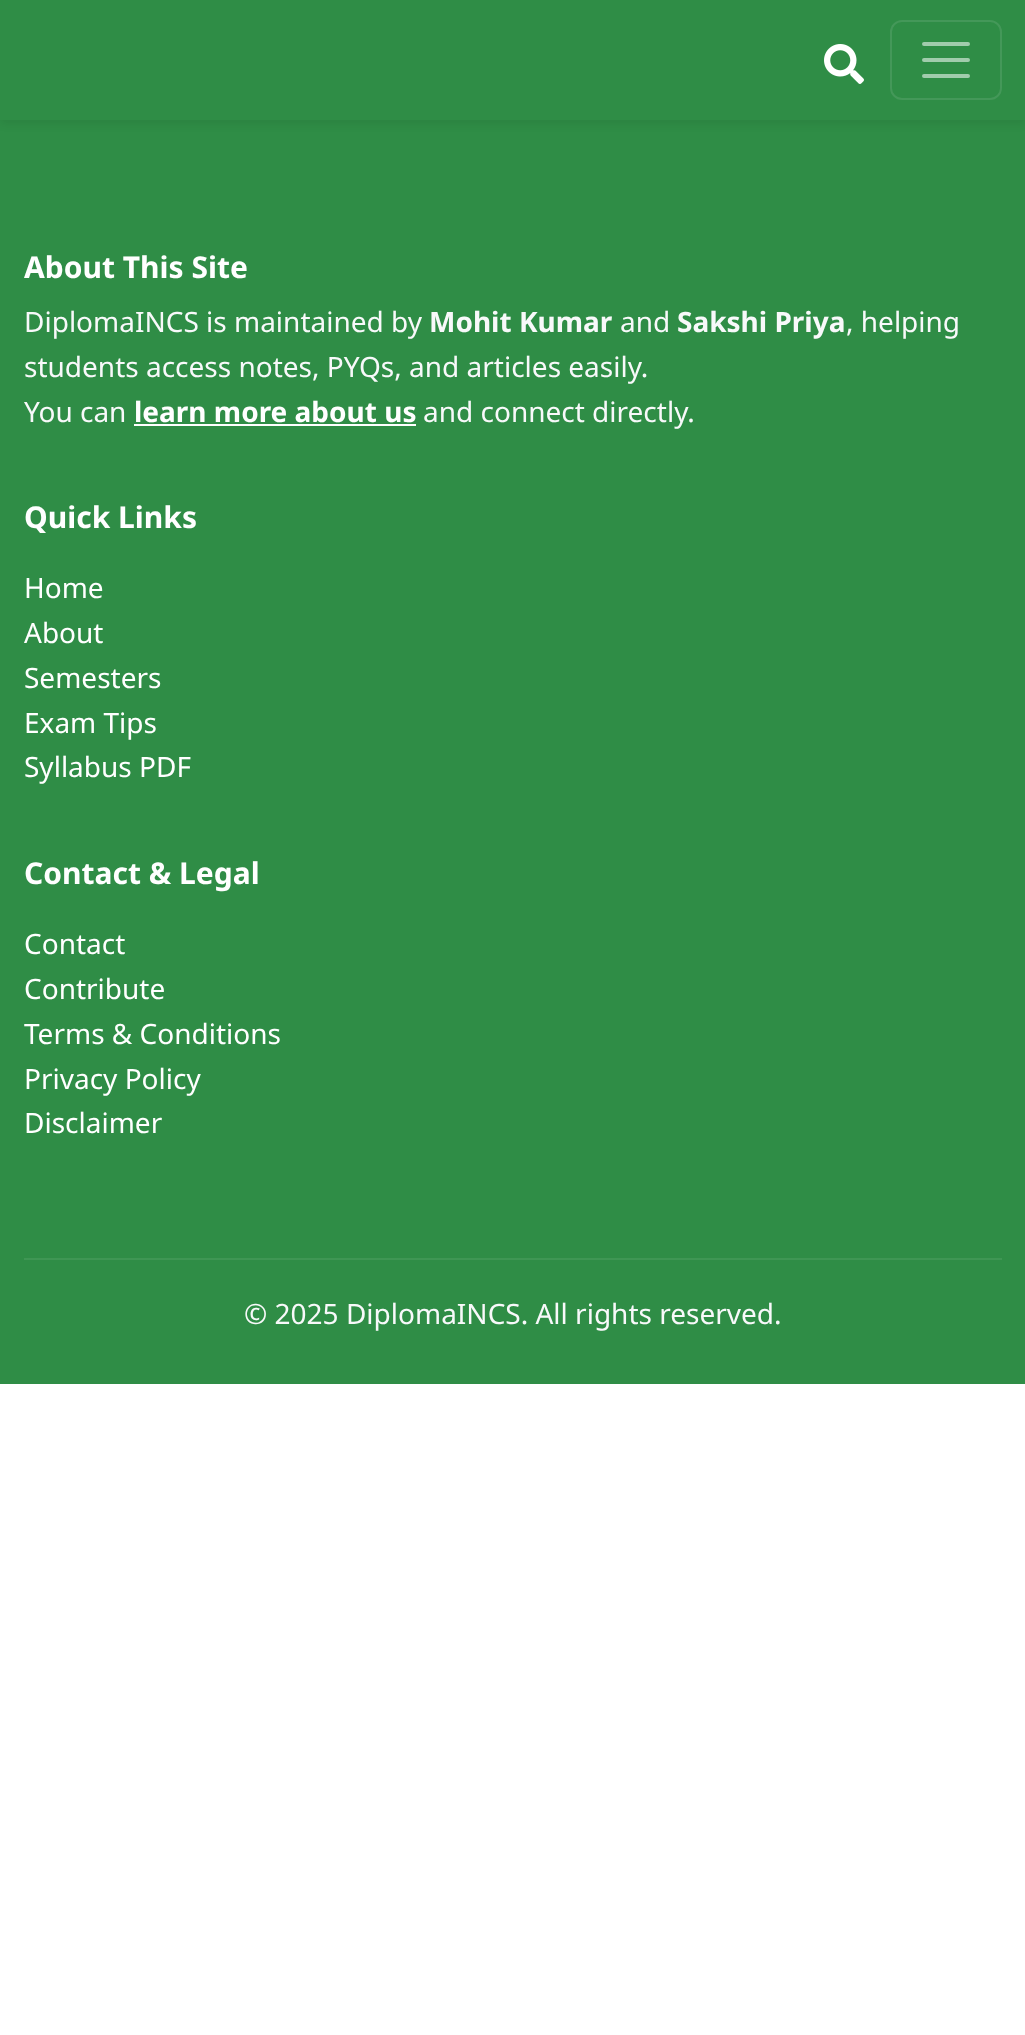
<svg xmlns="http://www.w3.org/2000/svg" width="1025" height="2035">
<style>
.a{font:bold 30px Noto Sans;fill:#fff}
.b{font:28px Noto Sans;fill:#f8f9fa}
.c{font:bold 28px Noto Sans;fill:#f8f9fa}
.d{font:bold 28px Noto Sans;fill:#fff}
.e{font:28px Noto Sans;fill:#fff}
</style>
<rect width="100%" height="100%" fill="#fff"/>
<path fill="#2f8d46" d="M0 120h1025v1264H0z"/>
<path fill="#00000012" filter="blur(4px)" d="M0 4h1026v120H0z"/>
<path fill="#2f8d46" d="M0 0h1025v120H0z"/>
<image href="1.png" x="824" y="44" width="40" height="40"/>
<rect fill="none" stroke="#449859" stroke-width="2" x="891" y="21" width="110" height="78" rx="11"/>
<path fill="none" stroke="#a1ccac" stroke-width="4" stroke-linecap="round" d="M924 44h44m-44 16h44m-44 16h44"/>
<path fill="#fff" d="M134 424h282v2H134z"/>
<path fill="#3f9654" d="M24 1258h978v2H24z"/>
<text class="a" x="24" y="278">About This Site</text>
<text class="b" x="24" y="332">DiplomaINCS is maintained by</text>
<text class="c" x="429" y="332">Mohit Kumar</text>
<text class="b" x="620" y="332">and</text>
<text class="c" x="677" y="332">Sakshi Priya</text>
<text class="b" x="846" y="332">, helping</text>
<text class="b" x="24" y="377">students access notes, PYQs, and articles easily.</text>
<text class="b" x="24" y="422">You can</text>
<text class="d" x="134" y="422">learn more about us</text>
<text class="b" x="423" y="422">and connect directly.</text>
<text class="a" x="24" y="528">Quick Links</text>
<text class="e" x="24" y="598">Home</text>
<text class="e" x="24" y="643">About</text>
<text class="e" x="24" y="688">Semesters</text>
<text class="e" x="24" y="733">Exam Tips</text>
<text class="e" x="24" y="777">Syllabus PDF</text>
<text class="a" x="24" y="884">Contact &amp; Legal</text>
<text class="e" x="24" y="954">Contact</text>
<text class="e" x="24" y="999">Contribute</text>
<text class="e" x="24" y="1044">Terms &amp; Conditions</text>
<text class="e" x="24" y="1089">Privacy Policy</text>
<text class="e" x="24" y="1133">Disclaimer</text>
<text class="b" x="244" y="1324">© 2025 DiplomaINCS. All rights reserved.</text>
</svg>
